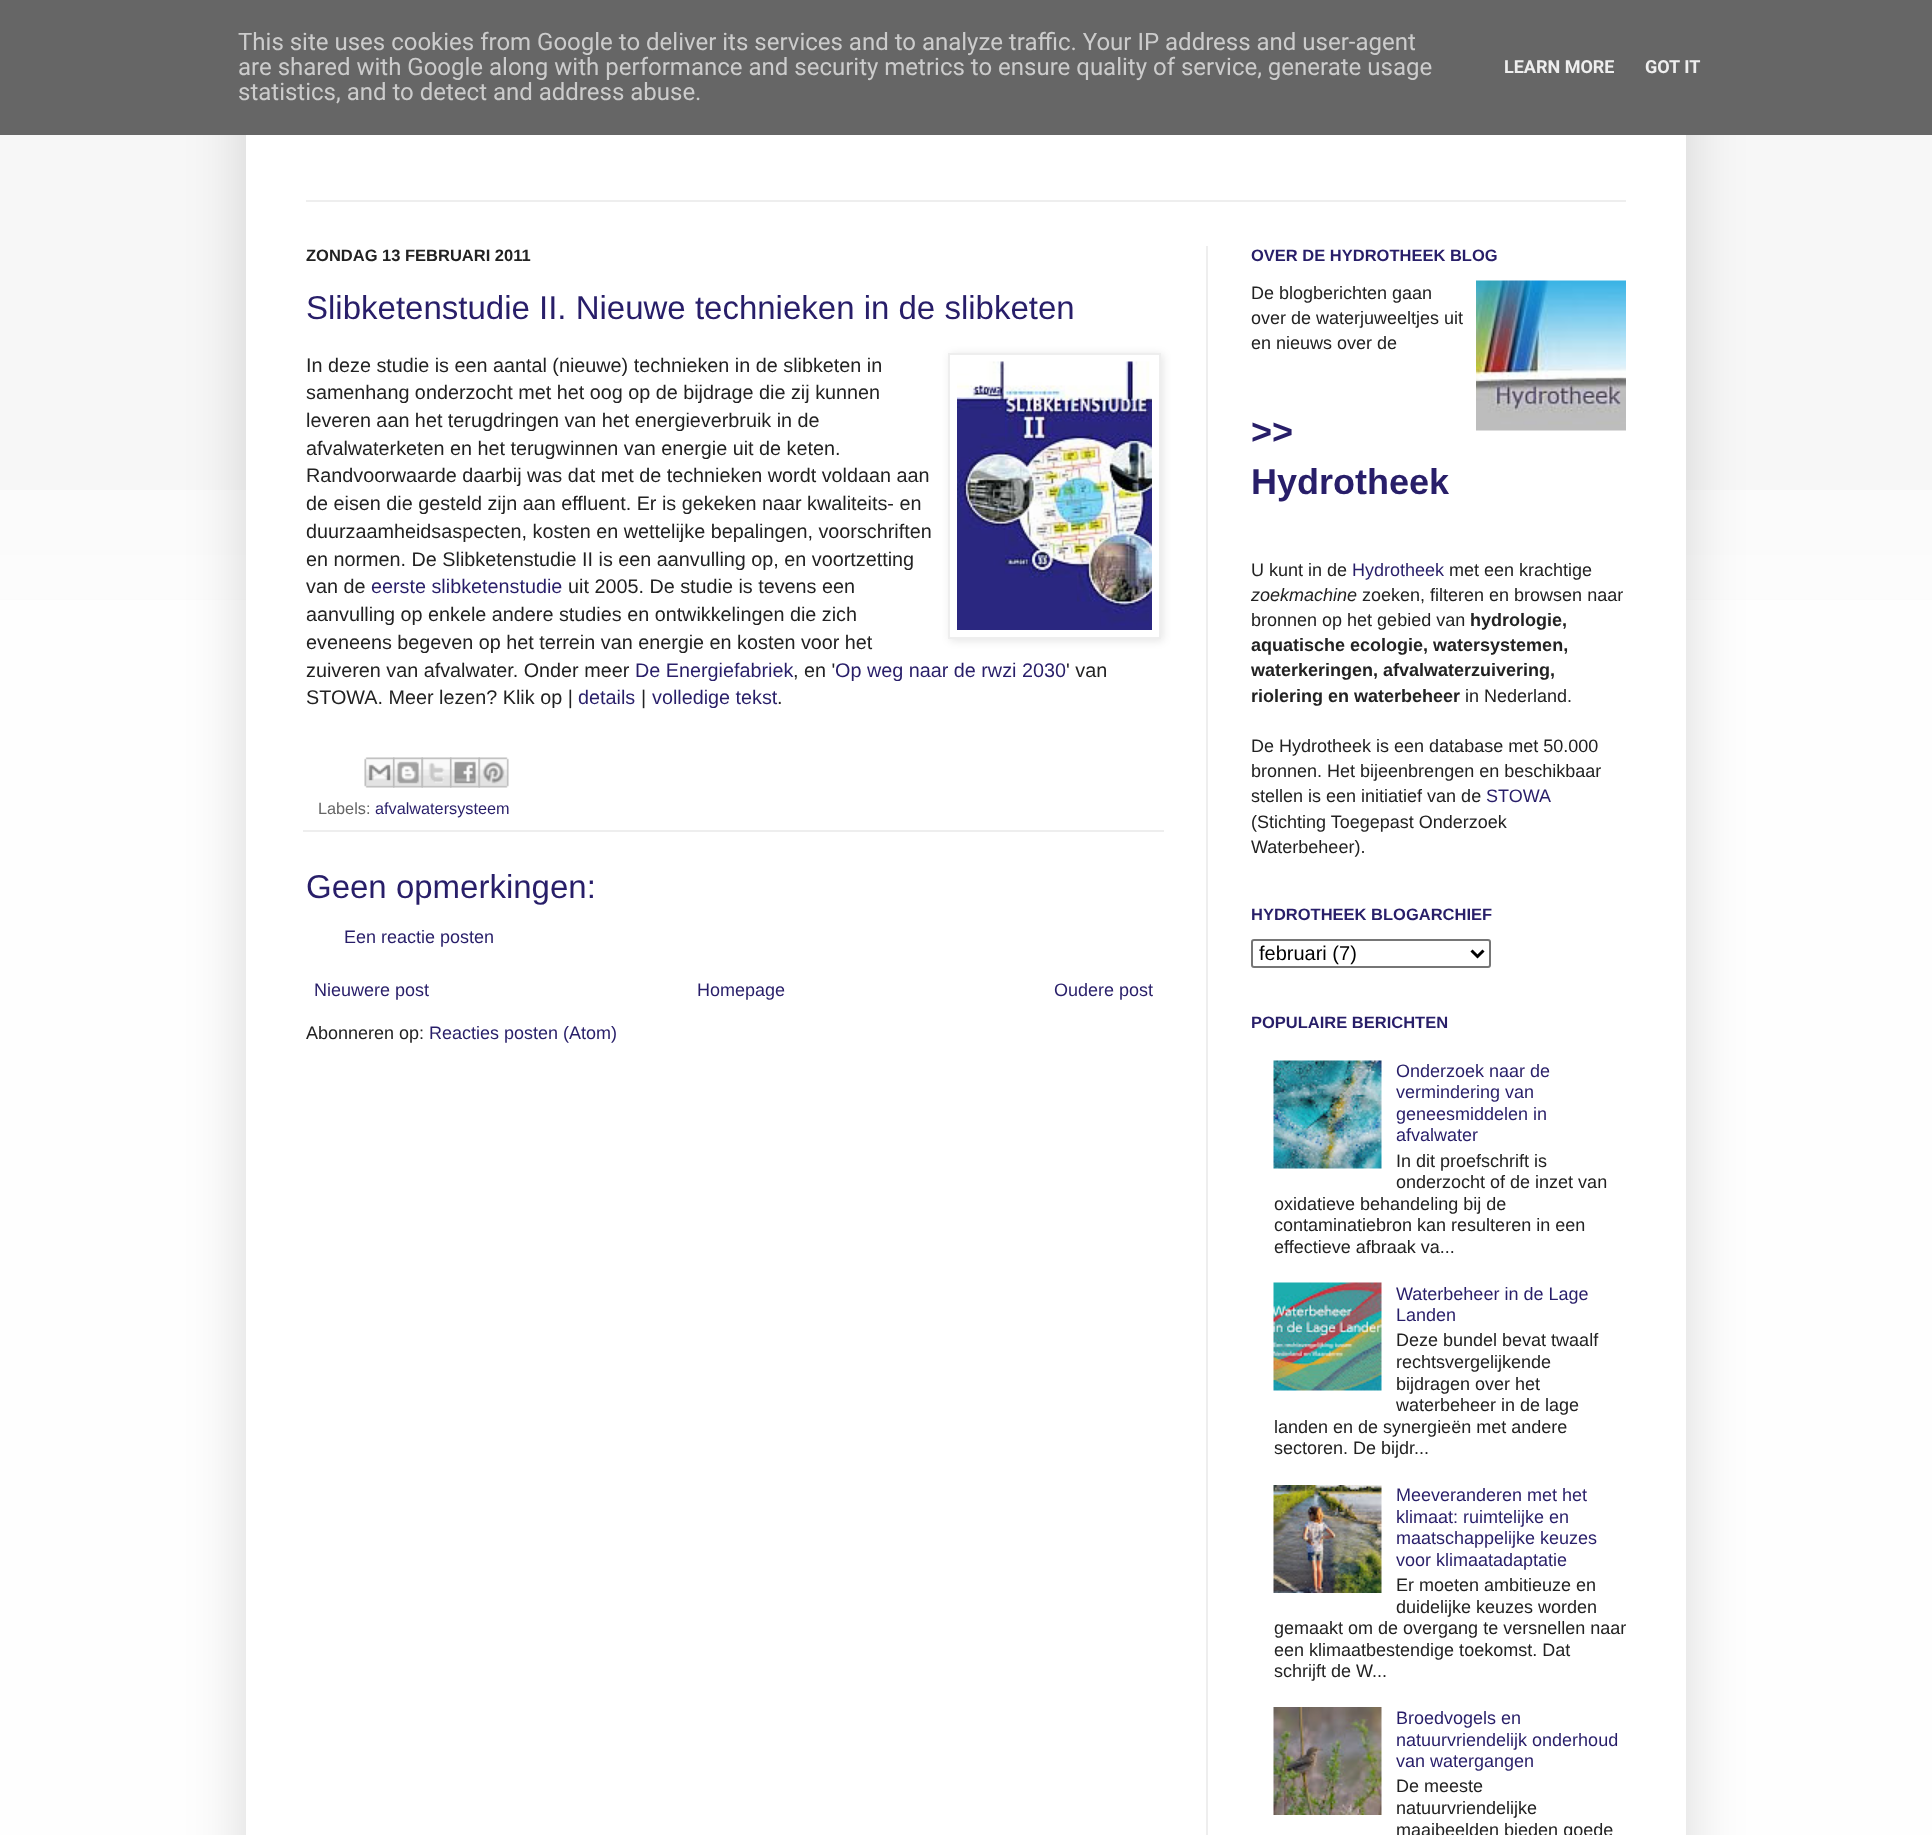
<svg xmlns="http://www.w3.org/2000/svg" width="1932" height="1835">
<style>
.a{font:24px Roboto;fill:#ccc}
.b{font:bold 18px Roboto;fill:#eee}
.c{font:bold 16.5px Liberation Sans;fill:#222}
.d{font:33px Liberation Sans;fill:#281e69}
.e{font:19.8px Liberation Sans;fill:#222}
.f{font:19.8px Liberation Sans;fill:#281e69}
.g{font:16.25px Liberation Sans;fill:#666}
.h{font:16.25px Liberation Sans;fill:#281e69}
.i{font:18px Liberation Sans;fill:#281e69}
.j{font:18px Liberation Sans;fill:#222}
.k{font:bold 16.5px Liberation Sans;fill:#281e69}
.l{font:bold 36px Liberation Sans;fill:#281e69}
.m{font:italic 18px Liberation Sans;fill:#222}
.n{font:bold 18px Liberation Sans;fill:#222}
.o{font:20px Liberation Sans;fill:#000}
</style>
<defs>
<clipPath id="clip1"><path d="M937 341h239v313h-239zm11 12h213v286h-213z" clip-rule="evenodd"/></clipPath>
</defs>
<rect width="100%" height="100%" fill="#fefefe"/>
<path fill="#f7f7f7" d="M0 135h1932v465H0z"/>
<image href="1.png" x="0" y="490" width="1932" height="110"/>
<path fill="#00000026" filter="blur(30px)" d="M246 45h1440v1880H246z"/>
<path fill="#666" d="M0 0h1932v135H0z"/>
<path fill="#fff" d="M246 135h1440v1700H246z"/>
<path fill="#eee" d="M306 200h1320v2H306z"/>
<path fill="#eee" d="M1206 246h2v1589H1206z"/>
<g clip-path="url(#clip1)">
<path fill="#0000001a" filter="blur(4px)" d="M950 354h213v287H950z"/>
</g>
<path fill="none" stroke="#eee" stroke-width="2" d="M949 354h211v284H949z"/>
<image href="2.png" x="957" y="361" width="195" height="269"/>
<path fill="#eee" d="M303 830h861v2H303z"/>
<image href="3.png" x="364" y="757" width="31" height="31"/>
<image href="4.png" x="393" y="757" width="30" height="31"/>
<image href="5.png" x="421" y="757" width="31" height="31"/>
<image href="6.png" x="450" y="757" width="30" height="31"/>
<image href="7.png" x="478" y="757" width="31" height="31"/>
<image href="8.png" x="1476" y="280" width="150" height="151"/>
<rect fill="none" stroke="#767676" stroke-width="2" x="1252" y="940" width="238" height="27" rx="2"/>
<path fill="none" stroke="#000" stroke-width="3" d="M1471.5 950.5l6 6l6-6"/>
<image href="9.png" x="1273" y="1060" width="109" height="109"/>
<image href="10.png" x="1273" y="1282" width="109" height="109"/>
<image href="11.png" x="1273" y="1485" width="109" height="108"/>
<image href="12.png" x="1273" y="1707" width="109" height="108"/>
<text class="a" x="238" y="50">This site uses cookies from Google to deliver its services and to analyze traffic. Your IP address and user-agent</text>
<text class="a" x="238" y="75">are shared with Google along with performance and security metrics to ensure quality of service, generate usage</text>
<text class="a" x="238" y="100">statistics, and to detect and address abuse.</text>
<text class="b" x="1504" y="73">LEARN MORE</text>
<text class="b" x="1645" y="73">GOT IT</text>
<text class="c" x="306" y="261">ZONDAG 13 FEBRUARI 2011</text>
<text class="d" x="306" y="319">Slibketenstudie II. Nieuwe technieken in de slibketen</text>
<text class="e" x="306" y="372">In deze studie is een aantal (nieuwe) technieken in de slibketen in</text>
<text class="e" x="306" y="399">samenhang onderzocht met het oog op de bijdrage die zij kunnen</text>
<text class="e" x="306" y="427">leveren aan het terugdringen van het energieverbruik in de</text>
<text class="e" x="306" y="455">afvalwaterketen en het terugwinnen van energie uit de keten.</text>
<text class="e" x="306" y="482">Randvoorwaarde daarbij was dat met de technieken wordt voldaan aan</text>
<text class="e" x="306" y="510">de eisen die gesteld zijn aan effluent. Er is gekeken naar kwaliteits- en</text>
<text class="e" x="306" y="538">duurzaamheidsaspecten, kosten en wettelijke bepalingen, voorschriften</text>
<text class="e" x="306" y="566">en normen. De Slibketenstudie II is een aanvulling op, en voortzetting</text>
<text class="e" x="306" y="593">van de</text>
<text class="f" x="371" y="593">eerste slibketenstudie</text>
<text class="e" x="568" y="593">uit 2005. De studie is tevens een</text>
<text class="e" x="306" y="621">aanvulling op enkele andere studies en ontwikkelingen die zich</text>
<text class="e" x="306" y="649">eveneens begeven op het terrein van energie en kosten voor het</text>
<text class="e" x="306" y="677">zuiveren van afvalwater. Onder meer</text>
<text class="f" x="635" y="677">De Energiefabriek</text>
<text class="e" x="793" y="677">, en '</text>
<text class="f" x="835" y="677">Op weg naar de rwzi 2030</text>
<text class="e" x="1066" y="677">' van</text>
<text class="e" x="306" y="704">STOWA. Meer lezen? Klik op |</text>
<text class="f" x="578" y="704">details</text>
<text class="e" x="641" y="704">|</text>
<text class="f" x="652" y="704">volledige tekst</text>
<text class="e" x="777" y="704">.</text>
<text class="g" x="318" y="814">Labels:</text>
<text class="h" x="375" y="814">afvalwatersysteem</text>
<text class="d" x="306" y="898">Geen opmerkingen:</text>
<text class="i" x="344" y="943">Een reactie posten</text>
<text class="i" x="314" y="996">Nieuwere post</text>
<text class="i" x="697" y="996">Homepage</text>
<text class="i" x="1054" y="996">Oudere post</text>
<text class="j" x="306" y="1039">Abonneren op:</text>
<text class="i" x="429" y="1039">Reacties posten (Atom)</text>
<text class="k" x="1251" y="261">OVER DE HYDROTHEEK BLOG</text>
<text class="j" x="1251" y="299">De blogberichten gaan</text>
<text class="j" x="1251" y="324">over de waterjuweeltjes uit</text>
<text class="j" x="1251" y="349">en nieuws over de</text>
<text class="l" x="1251" y="444">&gt;&gt;</text>
<text class="l" x="1251" y="494">Hydrotheek</text>
<text class="j" x="1251" y="576">U kunt in de</text>
<text class="i" x="1352" y="576">Hydrotheek</text>
<text class="j" x="1449" y="576">met een krachtige</text>
<text class="m" x="1251" y="601">zoekmachine</text>
<text class="j" x="1362" y="601">zoeken, filteren en browsen naar</text>
<text class="j" x="1251" y="626">bronnen op het gebied van</text>
<text class="n" x="1470" y="626">hydrologie,</text>
<text class="n" x="1251" y="651">aquatische ecologie, watersystemen,</text>
<text class="n" x="1251" y="676">waterkeringen, afvalwaterzuivering,</text>
<text class="n" x="1251" y="702">riolering en waterbeheer</text>
<text class="j" x="1465" y="702">in Nederland.</text>
<text class="j" x="1251" y="752">De Hydrotheek is een database met 50.000</text>
<text class="j" x="1251" y="777">bronnen. Het bijeenbrengen en beschikbaar</text>
<text class="j" x="1251" y="802">stellen is een initiatief van de</text>
<text class="i" x="1486" y="802">STOWA</text>
<text class="j" x="1251" y="828">(Stichting Toegepast Onderzoek</text>
<text class="j" x="1251" y="853">Waterbeheer).</text>
<text class="k" x="1251" y="920">HYDROTHEEK BLOGARCHIEF</text>
<text class="o" x="1259" y="960">februari (7)</text>
<text class="k" x="1251" y="1028">POPULAIRE BERICHTEN</text>
<text class="i" x="1396" y="1077">Onderzoek naar de</text>
<text class="i" x="1396" y="1098">vermindering van</text>
<text class="i" x="1396" y="1120">geneesmiddelen in</text>
<text class="i" x="1396" y="1141">afvalwater</text>
<text class="j" x="1396" y="1167">In dit proefschrift is</text>
<text class="j" x="1396" y="1188">onderzocht of de inzet van</text>
<text class="j" x="1274" y="1210">oxidatieve behandeling bij de</text>
<text class="j" x="1274" y="1231">contaminatiebron kan resulteren in een</text>
<text class="j" x="1274" y="1253">effectieve afbraak va...</text>
<text class="i" x="1396" y="1300">Waterbeheer in de Lage</text>
<text class="i" x="1396" y="1321">Landen</text>
<text class="j" x="1396" y="1346">Deze bundel bevat twaalf</text>
<text class="j" x="1396" y="1368">rechtsvergelijkende</text>
<text class="j" x="1396" y="1390">bijdragen over het</text>
<text class="j" x="1396" y="1411">waterbeheer in de lage</text>
<text class="j" x="1274" y="1433">landen en de synergieën met andere</text>
<text class="j" x="1274" y="1454">sectoren. De bijdr...</text>
<text class="i" x="1396" y="1501">Meeveranderen met het</text>
<text class="i" x="1396" y="1523">klimaat: ruimtelijke en</text>
<text class="i" x="1396" y="1544">maatschappelijke keuzes</text>
<text class="i" x="1396" y="1566">voor klimaatadaptatie</text>
<text class="j" x="1396" y="1591">Er moeten ambitieuze en</text>
<text class="j" x="1396" y="1613">duidelijke keuzes worden</text>
<text class="j" x="1274" y="1634">gemaakt om de overgang te versnellen naar</text>
<text class="j" x="1274" y="1656">een klimaatbestendige toekomst. Dat</text>
<text class="j" x="1274" y="1677">schrijft de W...</text>
<text class="i" x="1396" y="1724">Broedvogels en</text>
<text class="i" x="1396" y="1746">natuurvriendelijk onderhoud</text>
<text class="i" x="1396" y="1767">van watergangen</text>
<text class="j" x="1396" y="1792">De meeste</text>
<text class="j" x="1396" y="1814">natuurvriendelijke</text>
<text class="j" x="1396" y="1836">maaibeelden bieden goede</text>
</svg>
